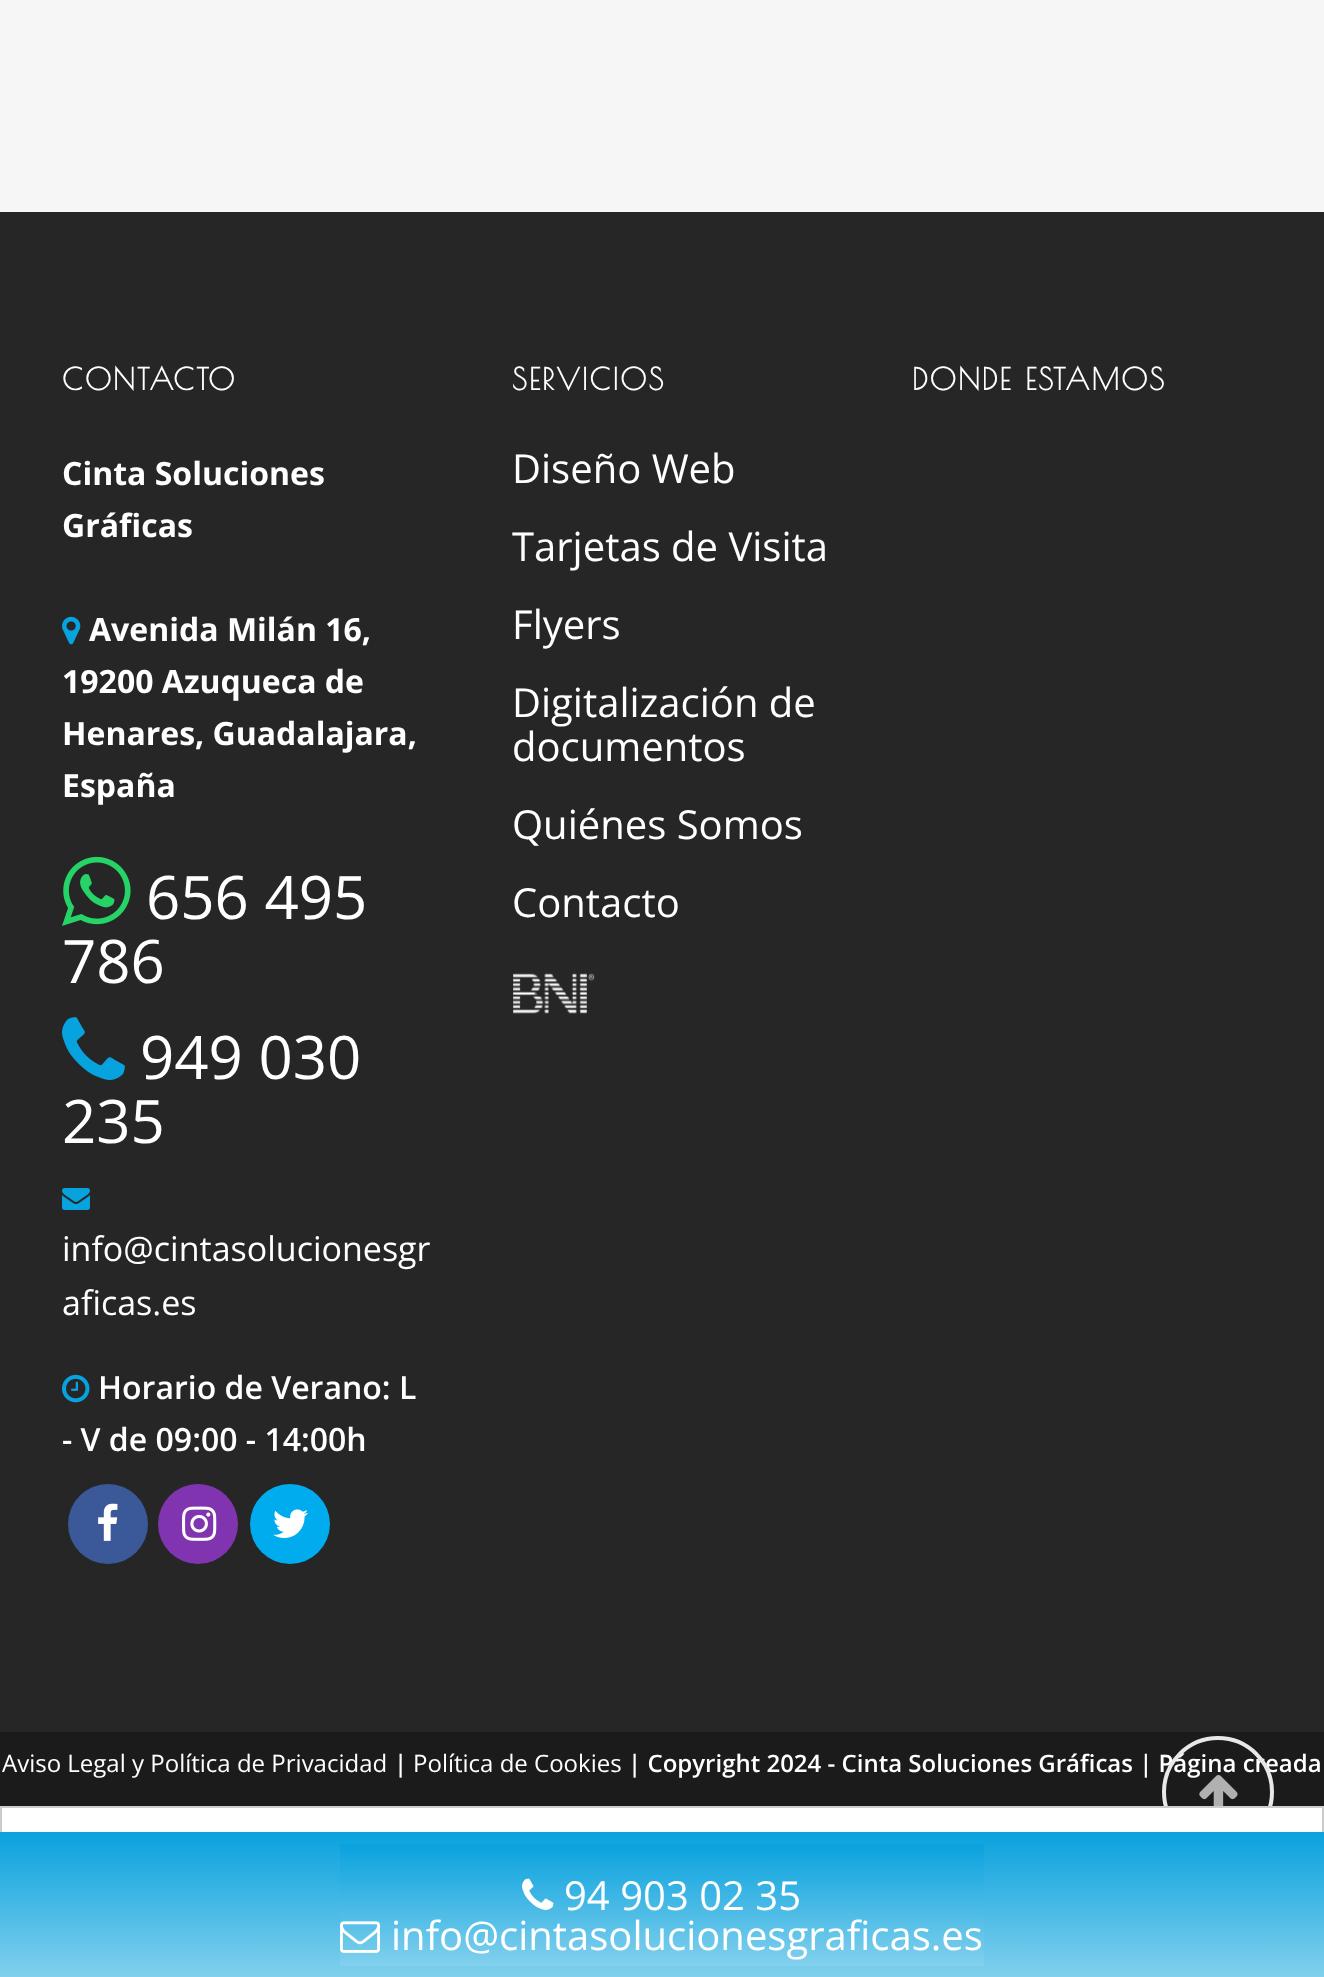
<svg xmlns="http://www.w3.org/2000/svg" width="1324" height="1977">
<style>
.a{font:bold 30px Poiret One;letter-spacing:2px;fill:#fff}
.b{font:bold 32px Open Sans;fill:#fff}
.c{font:60px Open Sans;fill:#fff}
.d{font:34px Open Sans;fill:#fff}
.e{font:600 32px Open Sans;fill:#fff}
.f{font:40px Open Sans;fill:#fff}
.g{font:24px Open Sans;fill:#fff}
.h{font:600 24px Open Sans;fill:#fff}
</style>
<defs>
<linearGradient id="g1" gradientUnits="userSpaceOnUse" x1="662" y1="1832" x2="662" y2="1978"><stop offset="0" stop-color="#09a2de"/><stop offset="1" stop-color="#82d0ed"/></linearGradient>
<linearGradient id="g2" gradientUnits="userSpaceOnUse" x1="662" y1="1844" x2="662" y2="1966"><stop offset="0" stop-color="#09a2de"/><stop offset="1" stop-color="#82d0ed"/></linearGradient>
</defs>
<rect width="100%" height="100%" fill="#f6f6f6"/>
<path fill="#262626" d="M0 212h1324v1520H0z"/>
<image href="1.png" x="62" y="616" width="19" height="29"/>
<image href="2.png" x="62" y="856" width="69" height="70"/>
<image href="3.png" x="62" y="1017" width="63" height="63"/>
<image href="4.png" x="62" y="1188" width="28" height="22"/>
<image href="5.png" x="62" y="1374" width="28" height="29"/>
<circle fill="#3b5998" cx="108" cy="1524" r="40"/>
<image href="6.png" x="98" y="1503" width="20" height="38"/>
<circle fill="#8134af" cx="198" cy="1524" r="40"/>
<image href="7.png" x="182" y="1506" width="35" height="35"/>
<circle fill="#00aced" cx="290" cy="1524" r="40"/>
<image href="8.png" x="273" y="1509" width="35" height="29"/>
<image href="9.png" x="513" y="973" width="82" height="41"/>
<path fill="#1b1b1b" d="M0 1732h1324v74H0z"/>
<text class="a" x="62" y="390">CONTACTO</text>
<text class="b" x="62" y="485">Cinta Soluciones</text>
<text class="b" x="62" y="537">Gráficas</text>
<text class="b" x="89" y="641">Avenida Milán 16,</text>
<text class="b" x="62" y="693">19200 Azuqueca de</text>
<text class="b" x="62" y="745">Henares, Guadalajara,</text>
<text class="b" x="62" y="797">España</text>
<text class="c" x="146" y="919">656 495</text>
<text class="c" x="62" y="983">786</text>
<text class="c" x="140" y="1079">949 030</text>
<text class="c" x="62" y="1143">235</text>
<text class="d" x="62" y="1261">info@cintasolucionesgr</text>
<text class="d" x="62" y="1315">aficas.es</text>
<text class="e" x="98" y="1399">Horario de Verano: L</text>
<text class="e" x="62" y="1451">- V de 09:00 - 14:00h</text>
<text class="a" x="512" y="390">SERVICIOS</text>
<text class="f" x="512" y="483">Diseño Web</text>
<text class="f" x="512" y="561">Tarjetas de Visita</text>
<text class="f" x="512" y="639">Flyers</text>
<text class="f" x="512" y="717">Digitalización de</text>
<text class="f" x="512" y="761">documentos</text>
<text class="f" x="512" y="839">Quiénes Somos</text>
<text class="f" x="512" y="917">Contacto</text>
<text class="a" x="912" y="390">DONDE ESTAMOS</text>
<text class="g" x="2" y="1772">Aviso Legal y Política de Privacidad</text>
<text class="h" x="394" y="1772">|</text>
<text class="g" x="413" y="1772">Política de Cookies</text>
<text class="h" x="628" y="1772">| Copyright 2024 - Cinta Soluciones Gráficas | Página creada</text>
<circle fill="none" stroke="#e8e8e8" stroke-width="4" cx="1218" cy="1792" r="54"/>
<image href="10.png" x="1199" y="1775" width="39" height="31"/>
<path fill="#fff" d="M2 1808h1320v24H2z"/>
<path fill="none" stroke="#ccc" stroke-width="2" d="M1 1807h1322v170H1z"/>
<path fill="url(#g1)" d="M0 1832h1324v145H0z"/>
<path fill="url(#g2)" d="M340 1844h644v122H340z"/>
<image href="11.png" x="522" y="1878" width="32" height="32"/>
<text class="f" x="564" y="1910">94 903 02 35</text>
<image href="12.png" x="340" y="1921" width="40" height="32"/>
<text class="f" x="391" y="1950">info@cintasolucionesgraficas.es</text>
</svg>
